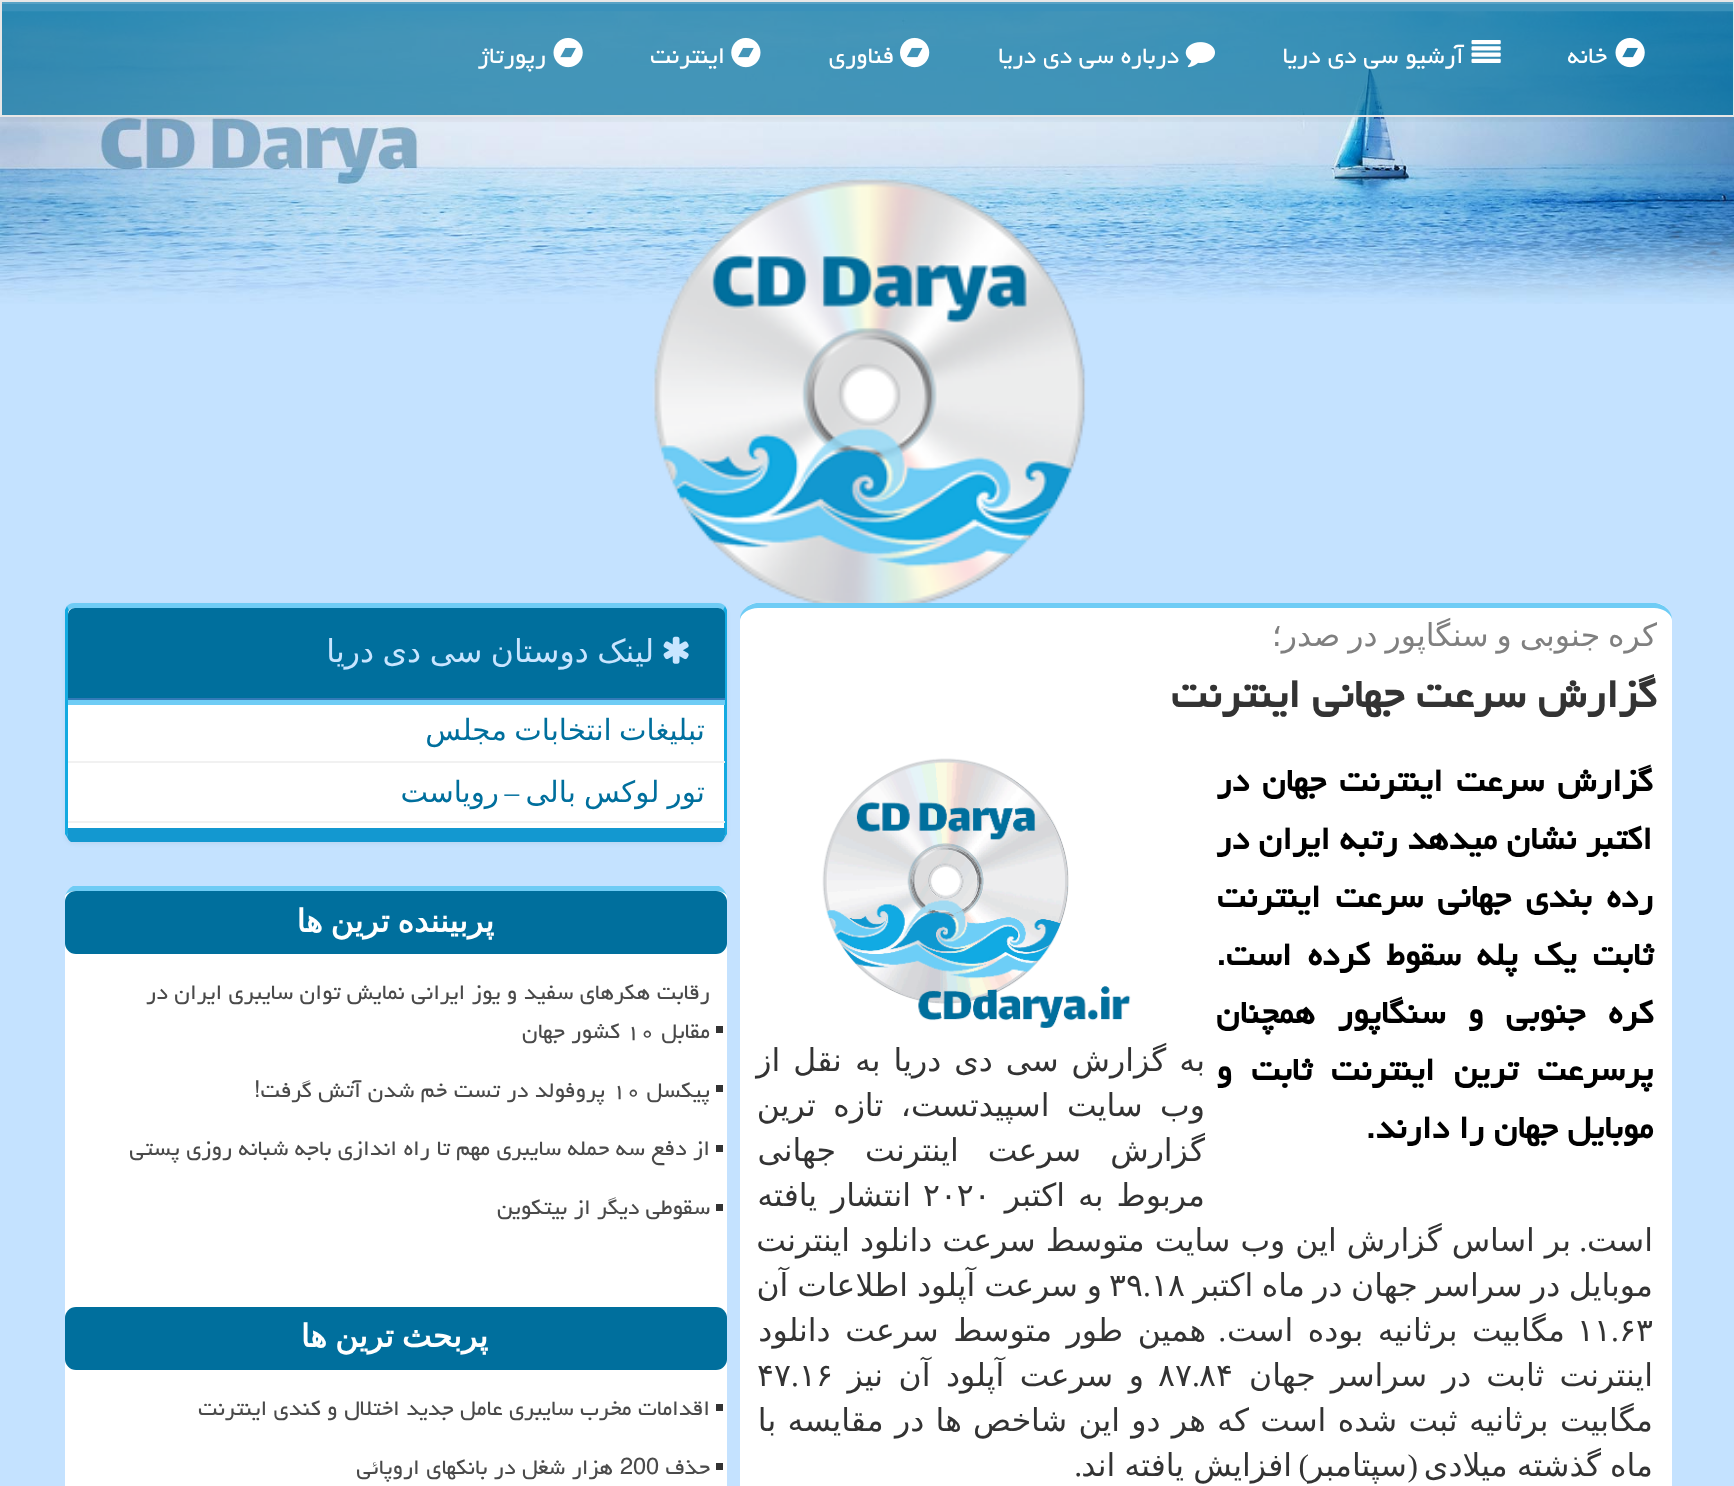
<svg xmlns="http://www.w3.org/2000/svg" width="1734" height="1486">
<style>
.a{font:29.25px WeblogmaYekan;direction:rtl;fill:#fff}
.b{font:31.5px DejaVu Sans;direction:rtl;fill:#808080}
.c{font:bold 50.5px WeblogmaYekan;direction:rtl;fill:#333}
.d{font:bold 40.5px WeblogmaYekan;direction:rtl;fill:#000}
.e{font:31.5px DejaVu Sans;direction:rtl;fill:#333}
.f{font:31.5px DejaVu Sans;fill:#333}
.g{font:31.5px Liberation Serif;direction:rtl;fill:#333}
.h{font:31.5px Liberation Serif;fill:#333}
.i{font:31.5px DejaVu Sans;direction:rtl;fill:#c8e5ff}
.j{font:29.25px DejaVu Sans;direction:rtl;fill:#006f9d}
.k{font:29.25px Liberation Serif;direction:rtl;fill:#006f9d}
.l{font:bold 31.5px DejaVu Sans;direction:rtl;fill:#fff}
.m{font:27px WeblogmaYekan;direction:rtl;fill:#4a4a4a}
.n{font:27px WeblogmaYekan;fill:#4a4a4a}
</style>
<defs>
<clipPath id="clip1"><path d="M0 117h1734v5H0z"/></clipPath>
</defs>
<rect width="100%" height="100%" fill="#c4e2ff"/>
<image href="1.png" x="0" y="11" width="1734" height="293"/>
<image href="2.png" x="652" y="178" width="434" height="425"/>
<g clip-path="url(#clip1)">
<path fill="#00000012" filter="blur(5.5px)" d="M0 2h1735v117H0z"/>
</g>
<path fill="#006f9db3" d="M2 4h1731v111H2z"/>
<path fill="#58a2c5" d="M2 2h1731v2H2z"/>
<path fill="none" stroke="#e7e7e7" stroke-width="2" d="M1 1h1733v115H1z"/>
<image href="3.png" x="1615" y="37" width="30" height="31"/>
<image href="4.png" x="1471" y="40" width="30" height="23"/>
<image href="5.png" x="1185" y="42" width="30" height="26"/>
<image href="6.png" x="900" y="37" width="30" height="31"/>
<image href="7.png" x="731" y="37" width="30" height="31"/>
<image href="8.png" x="553" y="37" width="30" height="31"/>
<rect fill="#fff" x="740" y="603" width="932" height="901" rx="18"/>
<path fill="#6fccf5" d="M758 603c-8 0-18 7-18 16c2-6 9-11 18-11h896c9 0 16 5 18 11c0-9-10-16-18-16z"/>
<image href="9.png" x="822" y="758" width="309" height="270"/>
<rect fill="#0000000d" filter="blur(2px)" x="65" y="605" width="662" height="239" rx="9"/>
<path fill="#fff" d="M74 608h644c3 0 6 2 6 4v220c0 2-3 3-6 3h-644c-3 0-6-1-6-3v-220c0-2 3-4 6-4z"/>
<path fill="#6fccf5" d="M74 603c-3 0-5 1-7 3l2 4c1-1 3-2 5-2h644c2 0 4 1 5 2l2-4c-2-2-4-3-7-3z"/>
<path fill="#13aae1" d="M727 834l-2 3l-1-4v-221l-1-2l2-4l2 4z"/>
<path fill="#1398d0" d="M71 842c-2-1-3-3-4-5l1-4c1 1 3 2 6 2h644c3 0 5-1 6-2l1 4c-1 2-2 4-4 5z"/>
<path fill="#13aae1" d="M65 610l2-4l2 4l-1 2v221l-1 4l-2-3z"/>
<path fill="#006f9d" d="M75 608h643c4 0 7 3 7 7v85h-657v-85c0-4 3-7 7-7z"/>
<path fill="#337ab7" d="M68 698h657v2H68z"/>
<image href="10.png" x="663" y="636" width="26" height="28"/>
<path fill="#6fccf5" d="M68 700h657v5H68z"/>
<path fill="#1398d0" d="M68 828h657v7H68z"/>
<path fill="#f1f1f1" d="M68 761h657v2H68z"/>
<path fill="#f1f1f1" d="M68 821h657v2H68z"/>
<rect fill="#fff" x="65" y="887" width="662" height="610" rx="11"/>
<path fill="#6fccf5" d="M76 891c-5 0-10 2-11 5c1-4 4-8 8-10h646c4 2 7 6 8 10c-1-3-6-5-11-5z"/>
<rect fill="#006f9d" x="65" y="891" width="662" height="63" rx="11"/>
<path fill="#333" d="M716 1026h7v7H716z"/>
<path fill="#333" d="M716 1085h7v7H716z"/>
<path fill="#333" d="M716 1145h7v7H716z"/>
<path fill="#333" d="M716 1204h7v7H716z"/>
<rect fill="#006f9d" x="65" y="1307" width="662" height="63" rx="11"/>
<path fill="#333" d="M716 1404h7v7H716z"/>
<path fill="#333" d="M716 1463h7v7H716z"/>
<text class="a" x="1607" y="63">خانه</text>
<text class="a" x="1464" y="63">آرشیو سی دی دریا</text>
<text class="a" x="1179" y="63">درباره سی دی دریا</text>
<text class="a" x="894" y="63">فناوری</text>
<text class="a" x="725" y="63">اینترنت</text>
<text class="a" x="546" y="63">رپورتاژ</text>
<text class="b" x="1657" y="646" word-spacing="-2">كره جنوبی و سنگاپور در صدر؛</text>
<text class="c" x="1657" y="707">گزارش سرعت جهانی اینترنت</text>
<text class="d" x="1653" y="791" word-spacing="3.5">گزارش سرعت اینترنت جهان در</text>
<text class="d" x="1652" y="849">اكتبر نشان میدهد رتبه ایران در</text>
<text class="d" x="1653" y="907" word-spacing="5">رده بندی جهانی سرعت اینترنت</text>
<text class="d" x="1653" y="965" word-spacing="6.25">ثابت یك پله سقوط كرده است.</text>
<text class="d" x="1653" y="1023" word-spacing="13">كره جنوبی و سنگاپور همچنان</text>
<text class="d" x="1653" y="1080" word-spacing="9.5">پرسرعت ترین اینترنت ثابت و</text>
<text class="d" x="1653" y="1138">موبایل جهان را دارند.</text>
<text class="e" x="1205" y="1071" word-spacing="3">به گزارش سی دی دریا به نقل از</text>
<text class="e" x="1205" y="1116" word-spacing="7.5">وب سایت اسپیدتست، تازه ترین</text>
<text class="e" x="1205" y="1161" word-spacing="19">گزارش سرعت اینترنت جهانی</text>
<text class="e" x="1205" y="1206" word-spacing="3">مربوط به اکتبر</text>
<text class="f" x="923" y="1206">۲۰۲۰</text>
<text class="e" x="911" y="1206" word-spacing="4">انتشار یافته</text>
<text class="e" x="1653" y="1251">است</text>
<text class="g" x="1587" y="1251">.</text>
<text class="e" x="1571" y="1251">بر اساس گزارش این وب سایت متوسط سرعت دانلود اینترنت</text>
<text class="e" x="1653" y="1296" word-spacing="-1.5">موبایل در سراسر جهان در ماه اکتبر</text>
<text class="f" x="1151" y="1296">۱۸</text>
<text class="h" x="1143" y="1296">.</text>
<text class="f" x="1109" y="1296">۳۹</text>
<text class="e" x="1102" y="1296" word-spacing="-1">و سرعت آپلود اطلاعات آن</text>
<text class="f" x="1619" y="1341">۶۳</text>
<text class="h" x="1611" y="1341">.</text>
<text class="f" x="1577" y="1341">۱۱</text>
<text class="e" x="1565" y="1341" word-spacing="4.5">مگابیت برثانیه بوده است</text>
<text class="g" x="1226" y="1341">.</text>
<text class="e" x="1206" y="1341" word-spacing="4.5">همین طور متوسط سرعت دانلود</text>
<text class="e" x="1653" y="1386" word-spacing="5">اینترنت ثابت در سراسر جهان</text>
<text class="f" x="1199" y="1386">۸۴</text>
<text class="h" x="1192" y="1386">.</text>
<text class="f" x="1158" y="1386">۸۷</text>
<text class="e" x="1144" y="1386" word-spacing="5.5">و سرعت آپلود آن نیز</text>
<text class="f" x="799" y="1386">۱۶</text>
<text class="h" x="791" y="1386">.</text>
<text class="f" x="757" y="1386">۴۷</text>
<text class="e" x="1653" y="1431" word-spacing="1.3">مگابیت برثانیه ثبت شده است که هر دو این شاخص ها در مقایسه با</text>
<text class="e" x="1653" y="1476" word-spacing="-1">ماه گذشته میلادی</text>
<text class="g" x="1418" y="1476">(</text>
<text class="g" x="1309" y="1476">)</text>
<text class="e" x="1407" y="1476">سپتامبر</text>
<text class="e" x="1292" y="1476" word-spacing="-1">افزایش یافته اند</text>
<text class="g" x="1082" y="1476">.</text>
<text class="i" x="654" y="662" word-spacing="-1.5">لینک دوستان سی دی دریا</text>
<text class="j" x="705" y="740" word-spacing="-2">تبلیغات انتخابات مجلس</text>
<text class="j" x="705" y="802" word-spacing="-1">تور لوکس بالی</text>
<text class="k" x="519" y="802">–</text>
<text class="j" x="499" y="802">رویاست</text>
<text class="l" x="494" y="932" word-spacing="-2">پربیننده ترین ها</text>
<text class="m" x="710" y="999">رقابت هکرهای سفید و یوز ایرانی نمایش توان سایبری ایران در</text>
<text class="m" x="710" y="1038">مقابل</text>
<text class="n" x="626" y="1038">۱۰</text>
<text class="m" x="620" y="1038">کشور جهان</text>
<text class="m" x="710" y="1097">پیکسل</text>
<text class="n" x="612" y="1097">۱۰</text>
<text class="m" x="605" y="1097">پروفولد در تست خم شدن آتش گرفت!</text>
<text class="m" x="710" y="1155">از دفع سه حمله سایبری مهم تا راه اندازی باجه شبانه روزی پستی</text>
<text class="m" x="710" y="1214">سقوطی دیگر از بیتکوین</text>
<text class="l" x="488" y="1347" word-spacing="-2">پربحث ترین ها</text>
<text class="m" x="710" y="1415">اقدامات مخرب سایبری عامل جدید اختلال و کندی اینترنت</text>
<text class="m" x="710" y="1474">حذف</text>
<text class="n" x="620" y="1474">200</text>
<text class="m" x="613" y="1474">هزار شغل در بانکهای اروپائی</text>
</svg>
